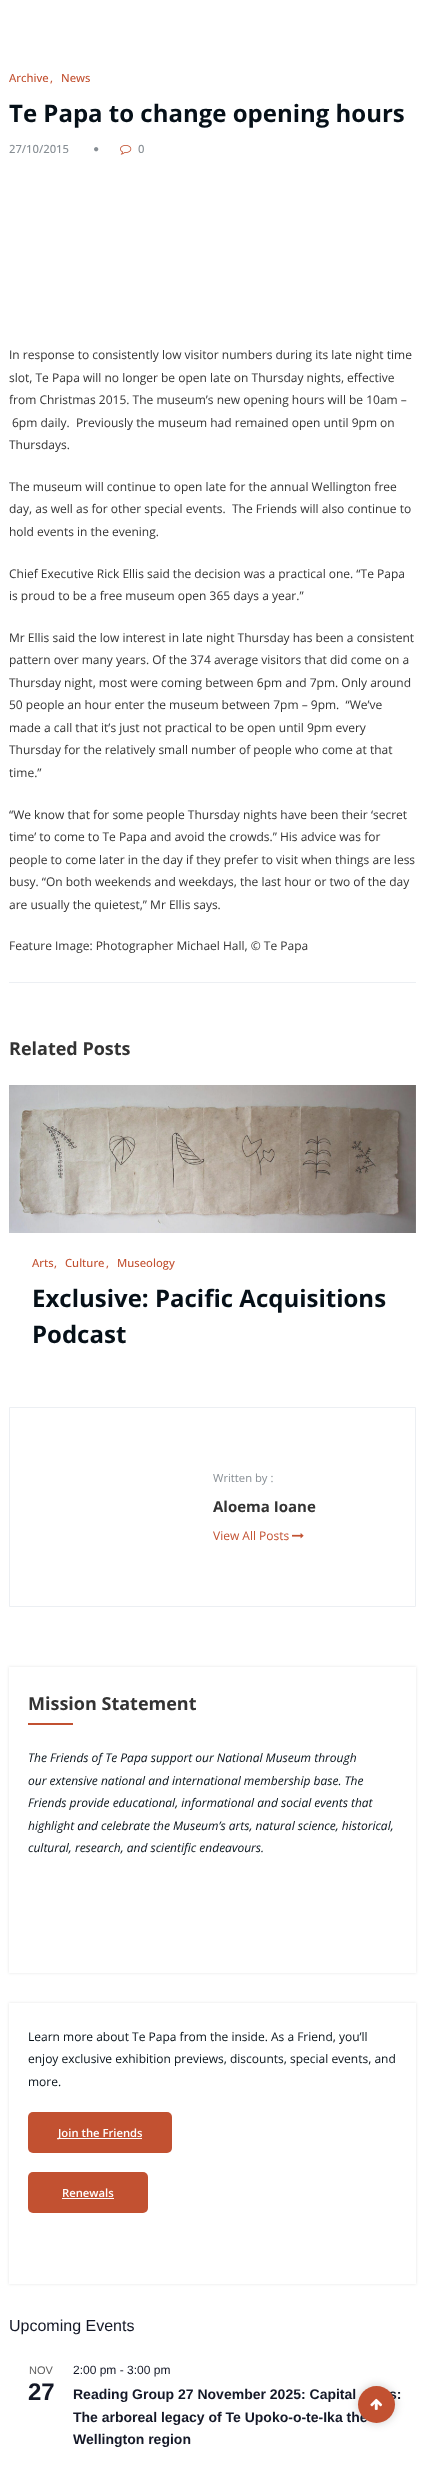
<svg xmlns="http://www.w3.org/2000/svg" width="425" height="2473">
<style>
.a{font:500 11.25px Open Sans;fill:#c25131}
.b{font:bold 24px Open Sans;fill:#061018}
.c{font:500 11.25px Open Sans;fill:#878e94}
.d{font:12px Open Sans;fill:#333}
.e{font:bold 18px Open Sans;fill:#333}
.f{font:11.25px Open Sans;fill:#878e94}
.g{font:bold 15px Open Sans;fill:#333}
.h{font:12px Open Sans;fill:#c25131}
.i{font:italic 12px Open Sans;fill:#061018}
.j{font:12px Open Sans;fill:#061018}
.k{font:600 11.25px Open Sans;fill:#fff}
.l{font:16px Liberation Sans;fill:#141827}
.m{font:11px Liberation Sans;fill:#5d5d5d}
.n{font:bold 24px Liberation Sans;fill:#141827}
.o{font:12px Liberation Sans;fill:#141827}
.p{font:bold 14px Liberation Sans;fill:#141827}
</style>
<defs>
<clipPath id="clip1"><path d="M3 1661h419v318h-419zm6 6h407v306h-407z" clip-rule="evenodd"/></clipPath>
<clipPath id="clip2"><path d="M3 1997h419v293h-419zm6 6h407v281h-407z" clip-rule="evenodd"/></clipPath>
</defs>
<rect width="100%" height="100%" fill="#fff"/>
<image href="1.png" x="94" y="147" width="5" height="5"/>
<image href="2.png" x="120" y="145" width="12" height="10"/>
<path fill="#eceff3" d="M9 982h407v1H9z"/>
<image href="3.png" x="9" y="1085" width="407" height="148"/>
<path fill="none" stroke="#eceff3" d="M9.5 1407.5h406v199H9.5z"/>
<image href="4.png" x="292" y="1533" width="12" height="6"/>
<g clip-path="url(#clip1)">
<path fill="#0000001c" filter="blur(1.5px)" d="M9 1667h407v306H9z"/>
</g>
<path fill="#c25131" d="M28 1723h45v2H28z"/>
<g clip-path="url(#clip2)">
<path fill="#0000001c" filter="blur(1.5px)" d="M9 2003h407v281H9z"/>
</g>
<rect fill="#c25131" x="28" y="2112" width="144" height="41" rx="5"/>
<path fill="#fff" d="M58 2138h84v1H58z"/>
<rect fill="#c25131" x="28" y="2172" width="120" height="41" rx="5"/>
<path fill="#fff" d="M62 2198h52v1H62z"/>
<rect fill="#00000033" filter="blur(5px)" x="358" y="2386" width="37" height="37" rx="18.5"/>
<text class="a" x="9" y="82">Archive</text>
<text class="a" x="50" y="82">,</text>
<text class="a" x="61" y="82">News</text>
<text class="b" x="9" y="122">Te Papa to change opening hours</text>
<text class="c" x="9" y="153">27/10/2015</text>
<text class="c" x="138" y="153">0</text>
<text class="d" x="9" y="359">In response to consistently low visitor numbers during its late night time</text>
<text class="d" x="9" y="382">slot, Te Papa will no longer be open late on Thursday nights, effective</text>
<text class="d" x="9" y="404">from Christmas 2015. The museum’s new opening hours will be 10am –</text>
<text class="d" xml:space="preserve" x="12" y="427">6pm daily.  Previously the museum had remained open until 9pm on</text>
<text class="d" x="9" y="449">Thursdays.</text>
<text class="d" x="9" y="491">The museum will continue to open late for the annual Wellington free</text>
<text class="d" xml:space="preserve" x="9" y="513">day, as well as for other special events.  The Friends will also continue to</text>
<text class="d" x="9" y="536">hold events in the evening.</text>
<text class="d" x="9" y="578">Chief Executive Rick Ellis said the decision was a practical one. “Te Papa</text>
<text class="d" x="9" y="600">is proud to be a free museum open 365 days a year.”</text>
<text class="d" x="9" y="642">Mr Ellis said the low interest in late night Thursday has been a consistent</text>
<text class="d" x="9" y="664">pattern over many years. Of the 374 average visitors that did come on a</text>
<text class="d" x="9" y="687">Thursday night, most were coming between 6pm and 7pm. Only around</text>
<text class="d" xml:space="preserve" x="9" y="709">50 people an hour enter the museum between 7pm – 9pm.  “We’ve</text>
<text class="d" x="9" y="732">made a call that it’s just not practical to be open until 9pm every</text>
<text class="d" x="9" y="754">Thursday for the relatively small number of people who come at that</text>
<text class="d" x="9" y="777">time.”</text>
<text class="d" x="9" y="819">“We know that for some people Thursday nights have been their ‘secret</text>
<text class="d" x="9" y="841">time’ to come to Te Papa and avoid the crowds.” His advice was for</text>
<text class="d" x="9" y="864">people to come later in the day if they prefer to visit when things are less</text>
<text class="d" x="9" y="886">busy. “On both weekends and weekdays, the last hour or two of the day</text>
<text class="d" x="9" y="909">are usually the quietest,” Mr Ellis says.</text>
<text class="d" x="9" y="950">Feature Image: Photographer Michael Hall, © Te Papa</text>
<text class="e" x="9" y="1055">Related Posts</text>
<text class="a" x="32" y="1267">Arts</text>
<text class="a" x="54" y="1267">,</text>
<text class="a" x="65" y="1267">Culture</text>
<text class="a" x="106" y="1267">,</text>
<text class="a" x="117" y="1267">Museology</text>
<text class="b" x="32" y="1307">Exclusive: Pacific Acquisitions</text>
<text class="b" x="32" y="1343">Podcast</text>
<text class="f" x="213" y="1482">Written by :</text>
<text class="g" x="213" y="1512">Aloema Ioane</text>
<text class="h" x="213" y="1540">View All Posts</text>
<text class="e" x="28" y="1710">Mission Statement</text>
<text class="i" x="28" y="1762">The Friends of Te Papa support our National Museum through</text>
<text class="i" x="28" y="1785">our extensive national and international membership base. The</text>
<text class="i" x="28" y="1807">Friends provide educational, informational and social events that</text>
<text class="i" x="28" y="1830">highlight and celebrate the Museum’s arts, natural science, historical,</text>
<text class="i" x="28" y="1852">cultural, research, and scientific endeavours.</text>
<text class="j" x="28" y="2041">Learn more about Te Papa from the inside. As a Friend, you’ll</text>
<text class="j" x="28" y="2063">enjoy exclusive exhibition previews, discounts, special events, and</text>
<text class="j" x="28" y="2086">more.</text>
<text class="k" x="58" y="2137">Join the Friends</text>
<text class="k" x="62" y="2197">Renewals</text>
<text class="l" x="9" y="2331">Upcoming Events</text>
<text class="m" x="29" y="2374">NOV</text>
<text class="n" x="28" y="2400">27</text>
<text class="o" x="73" y="2374">2:00 pm - 3:00 pm</text>
<text class="p" x="73" y="2399">Reading Group 27 November 2025: Capital</text>
<text class="p" x="389" y="2399">s:</text>
<text class="p" x="73" y="2422">The arboreal legacy of Te Upoko-o-te-Ika the</text>
<text class="p" x="73" y="2444">Wellington region</text>
<circle fill="#c25131" cx="376.5" cy="2404.5" r="18.5"/>
<image href="5.png" x="370" y="2398" width="13" height="12"/>
</svg>
